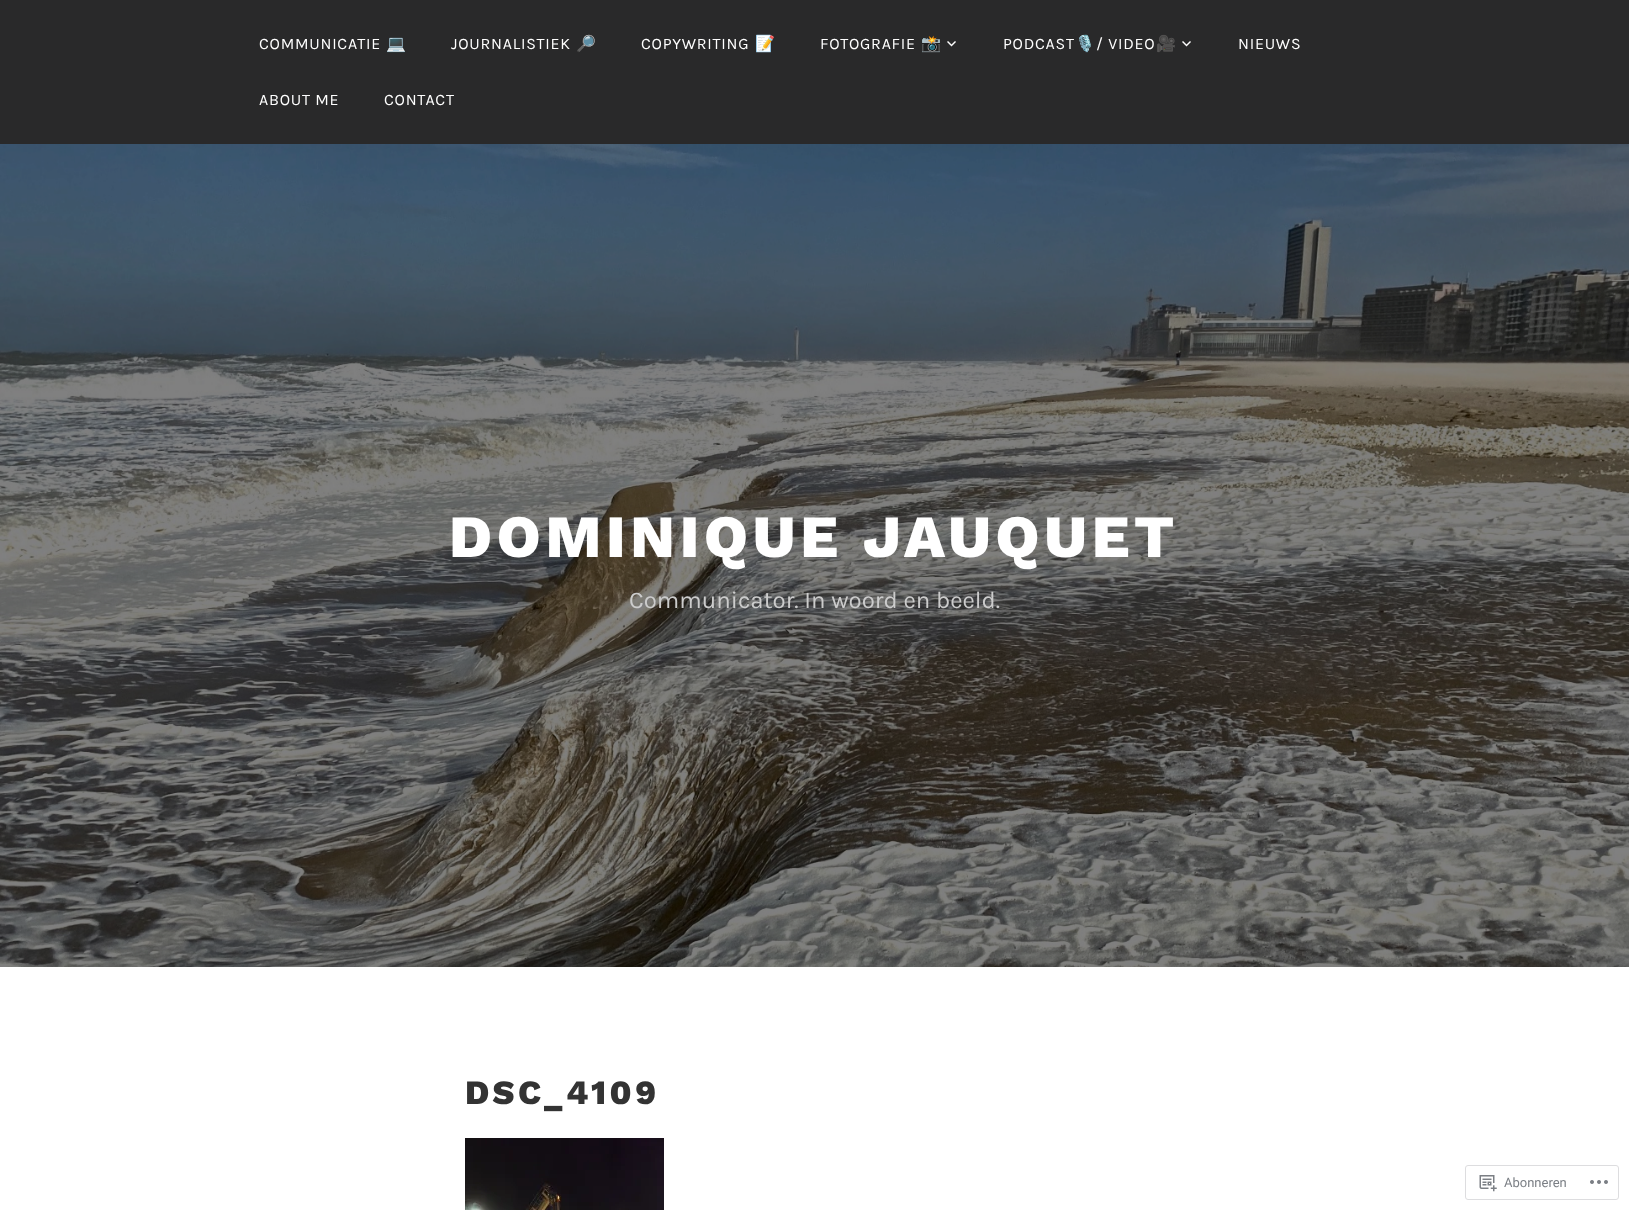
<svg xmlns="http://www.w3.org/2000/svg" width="1629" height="1210">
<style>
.a{font:16px Karla;letter-spacing:0.75px;fill:#fff}
.b{font:16px Noto Color Emoji;letter-spacing:0.75px;fill:#fff}
.c{font:800 60px Work Sans;letter-spacing:4.75px;fill:#fff}
.d{font:24px Karla;fill:#ccc}
.e{font:800 34px Work Sans;letter-spacing:3.5px;fill:#333}
.f{font:13px Roboto;fill:#7b7f85}
</style>
<rect width="100%" height="100%" fill="#fff"/>
<path fill="#29292a" d="M0 0h1629v144H0z"/>
<image href="1.png" x="947" y="41" width="9" height="6"/>
<image href="1.png" x="1182" y="41" width="9" height="6"/>
<image href="2.png" x="0" y="144" width="1629" height="823"/>
<image href="3.png" x="465" y="1138" width="199" height="72"/>
<rect fill="none" stroke="#dddddf" x="1465.5" y="1165.5" width="153" height="34" rx="2.5"/>
<image href="4.png" x="1479" y="1175" width="18" height="17"/>
<image href="5.png" x="1590" y="1180" width="18" height="4"/>
<text class="a" x="259" y="49">COMMUNICATIE</text>
<text class="b" x="386" y="49">💻</text>
<text class="a" x="451" y="49">JOURNALISTIEK</text>
<text class="b" x="576" y="49">🔎</text>
<text class="a" x="641" y="49">COPYWRITING</text>
<text class="b" x="755" y="49">📝</text>
<text class="a" x="820" y="49">FOTOGRAFIE</text>
<text class="b" x="921" y="49">📸</text>
<text class="a" x="1003" y="49">PODCAST</text>
<text class="b" x="1075" y="49">🎙</text>
<text class="a" x="1096" y="49">/ VIDEO</text>
<text class="b" x="1156" y="49">🎥</text>
<text class="a" x="1238" y="49">NIEUWS</text>
<text class="a" x="259" y="105">ABOUT ME</text>
<text class="a" x="384" y="105">CONTACT</text>
<text class="c" x="449" y="557">DOMINIQUE JAUQUET</text>
<text class="d" x="629" y="608">Communicator. In woord en beeld.</text>
<text class="e" x="465" y="1104">DSC_4109</text>
<text class="f" x="1504" y="1187">Abonneren</text>
</svg>
